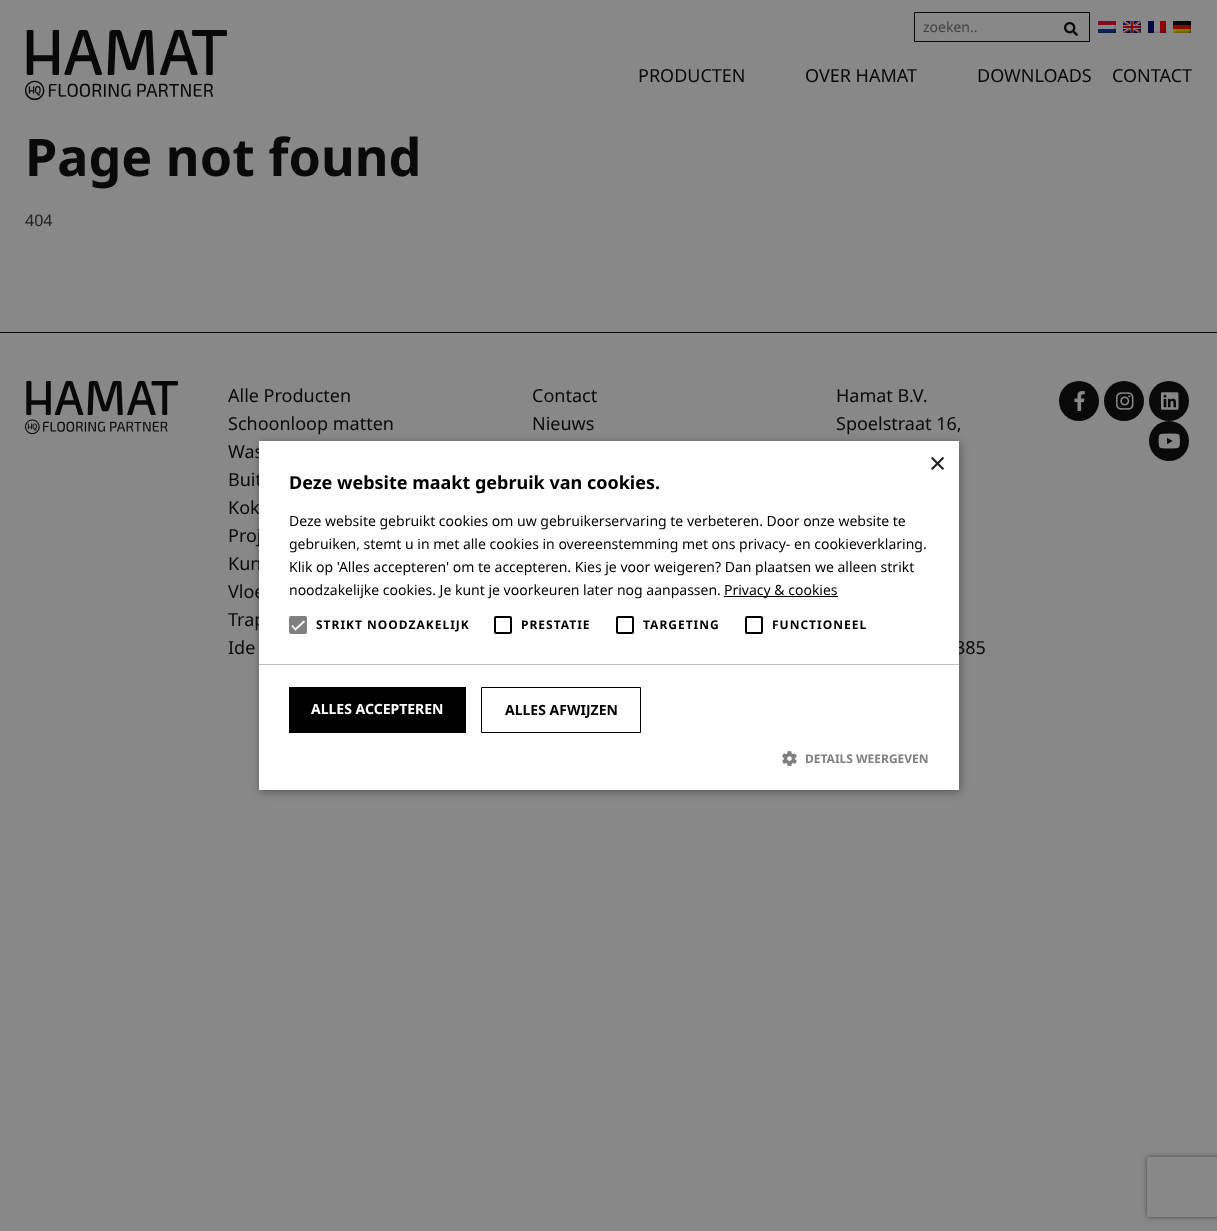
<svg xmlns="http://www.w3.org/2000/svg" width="1217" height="1231">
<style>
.a{font:14px Noto Sans;fill:#434343}
.b{font:18px Noto Sans;fill:#090909}
.c{font:bold 52px Noto Sans;fill:#090909}
.d{font:16px Noto Sans;fill:#222}
.e{font:30px Noto Sans;fill:#222}
.f{font:bold 18px Noto Sans;fill:#000}
.g{font:14px Noto Sans;fill:#000}
.h{font:bold 12px Noto Sans;letter-spacing:1px;fill:#000}
.i{font:bold 14px Noto Sans;fill:#fff}
.j{font:bold 14px Noto Sans;fill:#000}
.k{font:bold 12px Noto Sans;fill:#808080}
</style>
<defs>
<clipPath id="clip1"><path d="M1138 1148h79v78h-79zm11 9h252c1 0 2 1 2 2v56c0 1-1 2-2 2h-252c-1 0-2-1-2-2v-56c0-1 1-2 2-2z" clip-rule="evenodd"/></clipPath>
</defs>
<rect width="100%" height="100%" fill="#888"/>
<image href="1.png" x="25" y="30" width="202" height="70"/>
<path fill="none" stroke="#090909" d="M914.5 12.5h175v29H914.5z"/>
<image href="2.png" x="1064" y="22" width="14" height="14"/>
<image href="3.png" x="1098" y="21" width="18" height="12"/>
<image href="4.png" x="1123" y="21" width="18" height="12"/>
<image href="5.png" x="1148" y="21" width="18" height="12"/>
<image href="6.png" x="1173" y="21" width="18" height="12"/>
<path fill="#090909" d="M0 332h1217v1H0z"/>
<image href="7.png" x="25" y="381" width="153" height="53"/>
<circle fill="#090909" cx="1079" cy="401" r="20"/>
<image href="8.png" x="1074" y="391" width="11" height="20"/>
<circle fill="#090909" cx="1124" cy="401" r="20"/>
<image href="9.png" x="1116" y="392" width="18" height="18"/>
<circle fill="#090909" cx="1169" cy="401" r="20"/>
<image href="10.png" x="1161" y="392" width="18" height="18"/>
<circle fill="#090909" cx="1169" cy="441" r="20"/>
<image href="11.png" x="1158" y="433" width="22" height="16"/>
<path fill="#00000059" filter="blur(4px)" d="M260 443h700v349H260z"/>
<g clip-path="url(#clip1)">
<rect fill="#494949" filter="blur(2.5px)" x="1147" y="1157" width="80" height="60" rx="2"/>
</g>
<text class="a" x="923" y="32">zoeken..</text>
<text class="b" x="638" y="82">PRODUCTEN</text>
<text class="b" x="805" y="82">OVER HAMAT</text>
<text class="b" x="977" y="82">DOWNLOADS</text>
<text class="b" x="1112" y="82">CONTACT</text>
<text class="c" x="25" y="176">Page not found</text>
<text class="d" x="25" y="226">404</text>
<text class="b" x="228" y="402">Alle Producten</text>
<text class="b" x="228" y="430">Schoonloop matten</text>
<text class="b" x="228" y="458">Was</text>
<text class="b" x="228" y="486">Buit</text>
<text class="b" x="228" y="514">Kok</text>
<text class="b" x="228" y="542">Proj</text>
<text class="b" x="228" y="570">Kun</text>
<text class="b" x="228" y="598">Vloe</text>
<text class="b" x="228" y="626">Trap</text>
<text class="b" x="228" y="654">Ide</text>
<text class="b" x="532" y="402">Contact</text>
<text class="b" x="532" y="430">Nieuws</text>
<text class="b" x="836" y="402">Hamat B.V.</text>
<text class="b" x="836" y="430">Spoelstraat 16,</text>
<text class="b" x="955" y="654">385</text>
<path fill="#fff" d="M259 441h700v349H259z"/>
<text class="e" x="929" y="474">×</text>
<text class="f" x="289" y="489">Deze website maakt gebruik van cookies.</text>
<text class="g" x="289" y="526">Deze website gebruikt cookies om uw gebruikerservaring te verbeteren. Door onze website te</text>
<text class="g" x="289" y="549">gebruiken, stemt u in met alle cookies in overeenstemming met ons privacy- en cookieverklaring.</text>
<text class="g" x="289" y="572">Klik op 'Alles accepteren' om te accepteren. Kies je voor weigeren? Dan plaatsen we alleen strikt</text>
<text class="g" x="289" y="595">noodzakelijke cookies. Je kunt je voorkeuren later nog aanpassen.</text>
<path fill="#000" d="M724 596h114v1H724z"/>
<text class="g" x="724" y="595">Privacy &amp; cookies</text>
<rect fill="#808080" stroke="#808080" stroke-width="2" x="290" y="617" width="16" height="16" rx="1"/>
<path fill="none" stroke="#fff" stroke-width="1.8" d="M292 625.5l3.5 4l9-8.5"/>
<text class="h" x="316" y="629">STRIKT NOODZAKELIJK</text>
<rect fill="none" stroke="#000" stroke-width="2" x="495" y="617" width="16" height="16" rx="1"/>
<text class="h" x="521" y="629">PRESTATIE</text>
<rect fill="none" stroke="#000" stroke-width="2" x="617" y="617" width="16" height="16" rx="1"/>
<text class="h" x="643" y="629">TARGETING</text>
<rect fill="none" stroke="#000" stroke-width="2" x="746" y="617" width="16" height="16" rx="1"/>
<text class="h" x="772" y="629">FUNCTIONEEL</text>
<path fill="#bfbfbf" d="M259 664h700v1H259z"/>
<path fill="#000" d="M289 687h177v46H289z"/>
<text class="i" x="311" y="714">ALLES ACCEPTEREN</text>
<path fill="none" stroke="#000" d="M481.5 687.5h159v45H481.5z"/>
<text class="j" x="505" y="715">ALLES AFWIJZEN</text>
<image href="12.png" x="782" y="751" width="15" height="15"/>
<text class="k" x="805" y="763">DETAILS WEERGEVEN</text>
</svg>
